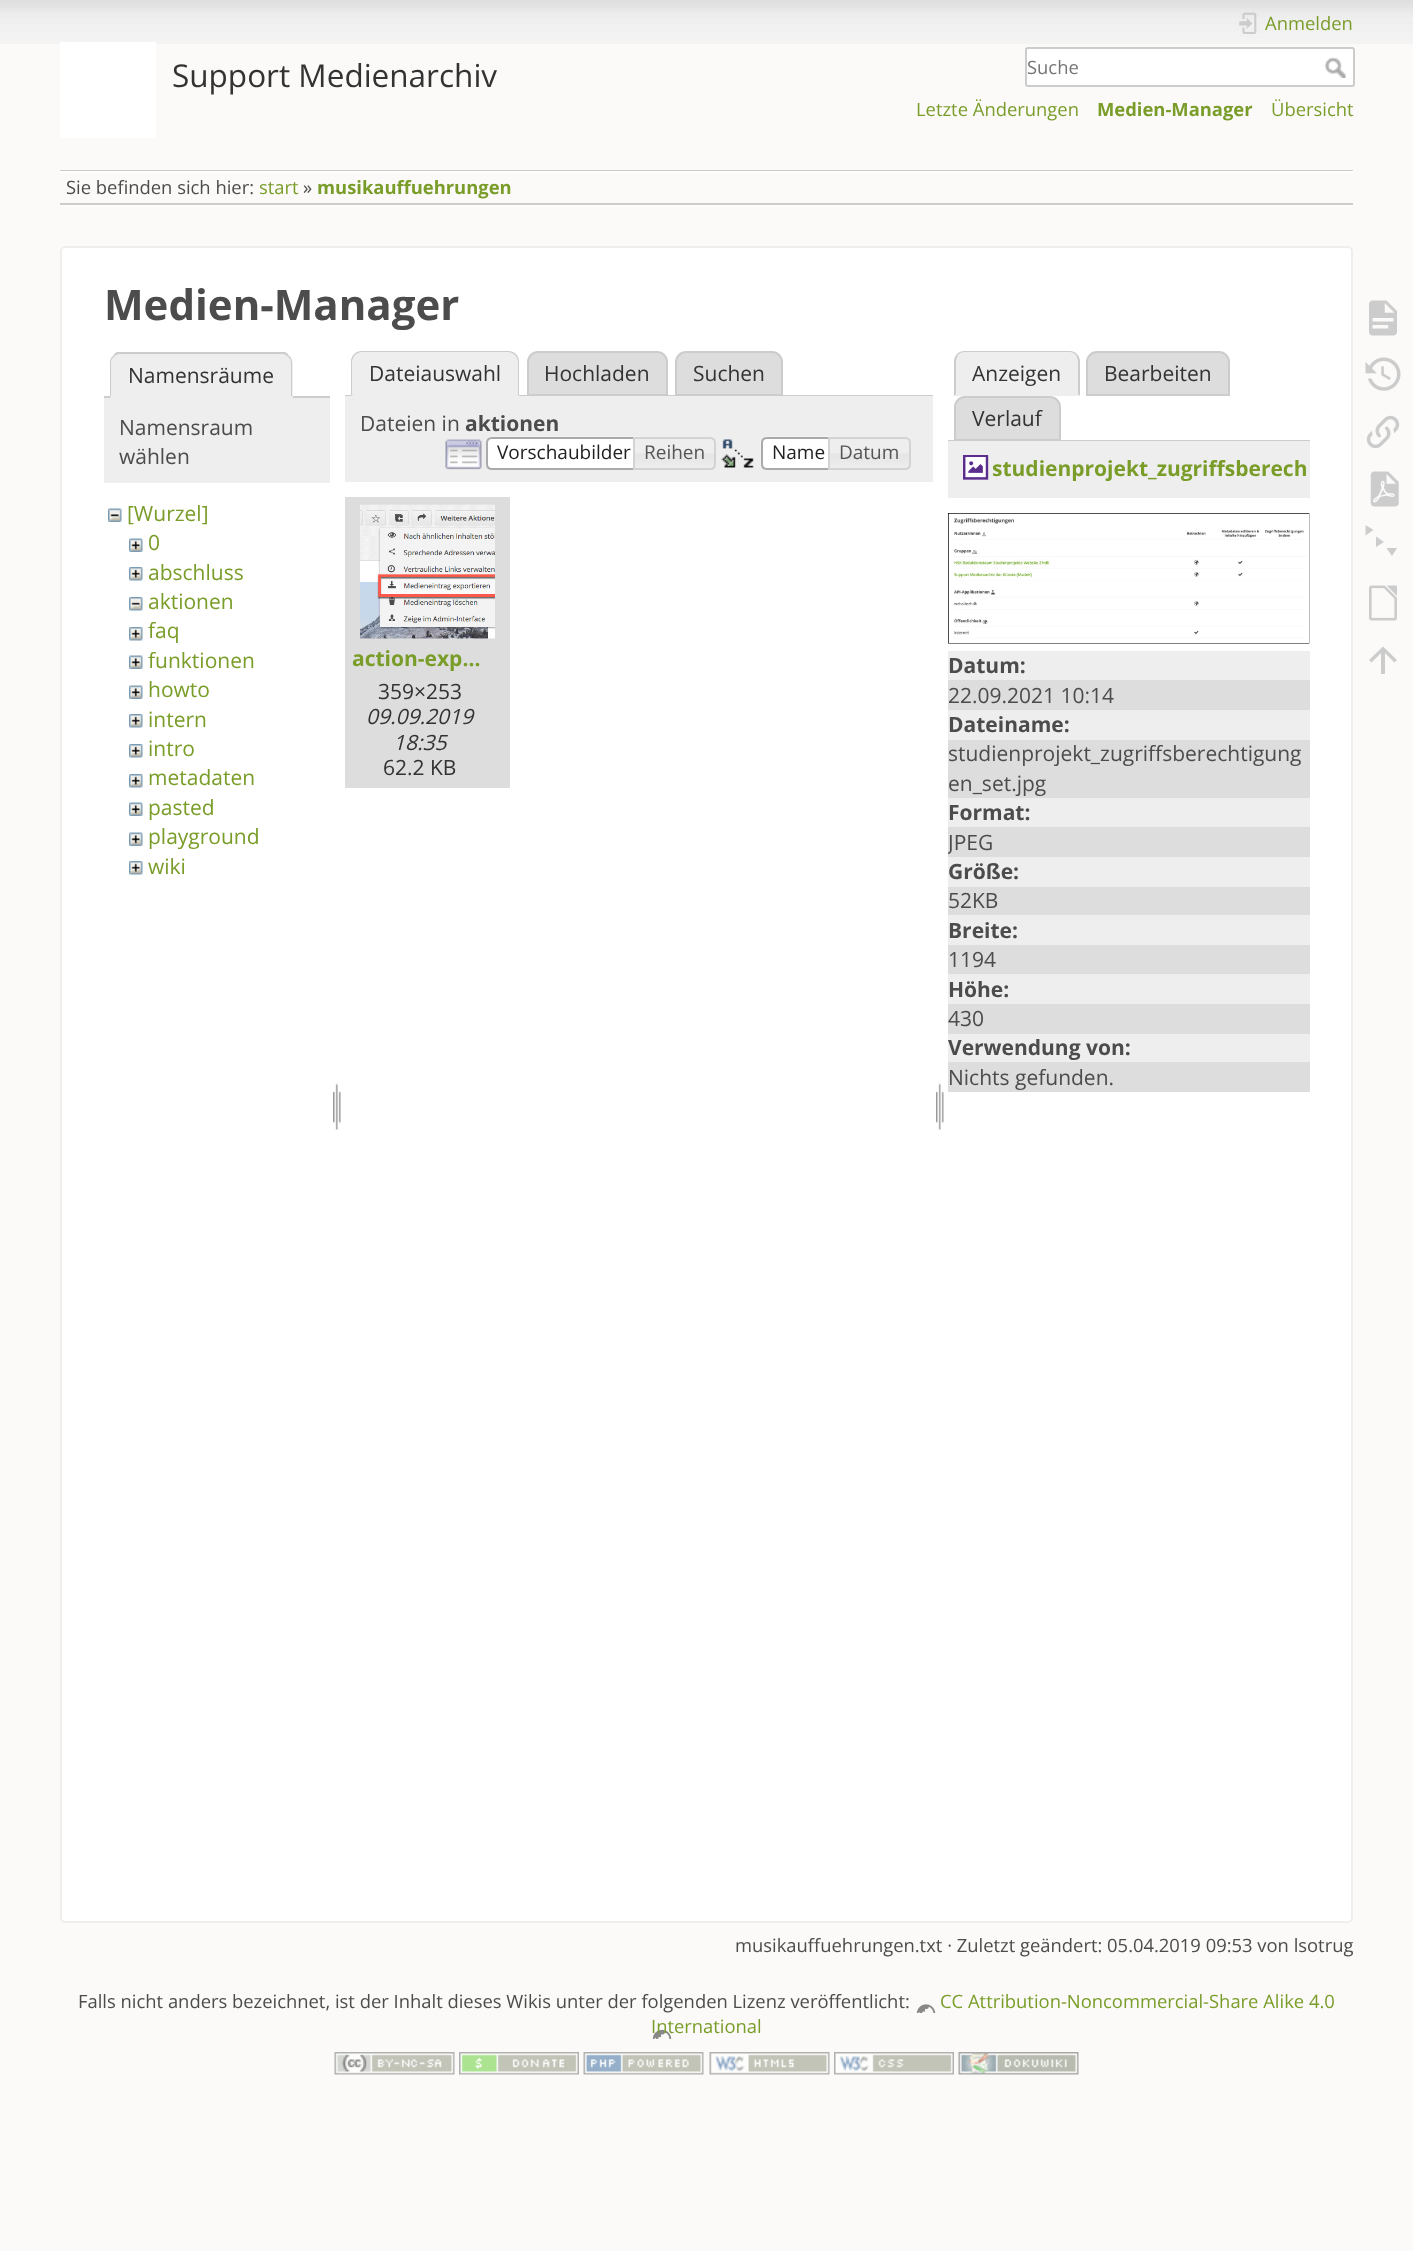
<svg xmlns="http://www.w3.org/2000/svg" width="1413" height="2251">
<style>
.a{font:31.5px Open Sans;fill:#333}
.b{font:18.4px Open Sans;fill:#7a9d29}
.c{font:18.4px Open Sans;fill:#757575}
.d{font:bold 18.4px Open Sans;fill:#7a9d29}
.e{font:18.4px Open Sans;fill:#4c4c4c}
.f{font:bold 42px Open Sans;fill:#4c4c4c}
.g{font:21px Open Sans;fill:#333}
.h{font:21px Open Sans;fill:#4c4c4c}
.i{font:21px Open Sans;fill:#7a9d29}
.j{font:bold 21px Open Sans;fill:#4c4c4c}
.k{font:19px Open Sans;fill:#212121}
.l{font:19px Open Sans;fill:#555}
.m{font:bold 21px Open Sans;fill:#7a9d29}
.n{font:italic 21px Open Sans;fill:#333}
</style>
<defs>
<clipPath id="clip1"><path d="M948 513h362v1352H948z"/></clipPath>
</defs>
<rect width="100%" height="100%" fill="#fbfaf9"/>
<image href="1.png" x="0" y="0" width="1413" height="44"/>
<path fill="#fff" d="M60 42h96v96H60z"/>
<image href="2.png" x="1239" y="12" width="18" height="22"/>
<rect fill="#fff" stroke="#ccc" stroke-width="2" x="1026" y="48" width="328" height="38" rx="2"/>
<image href="3.png" x="1324" y="57" width="22" height="21"/>
<path fill="#ccc" d="M60 170h1293v1H60z"/>
<path fill="#fff" d="M60 205h1293v1H60z"/>
<path fill="#fff" d="M60 171h1293v2H60z"/>
<path fill="#ccc" d="M60 203h1293v2H60z"/>
<rect fill="#fff" stroke="#eee" stroke-width="2" x="61" y="247" width="1291" height="1675" rx="4"/>
<path fill="#ccc" d="M104 396h226v2H104z"/>
<path fill="#eee" d="M121 353h161c6 0 11 5 11 11v34h-183v-34c0-6 5-11 11-11z"/>
<path fill="#ccc" d="M120 354c-2 0-5 1-6 3l-1-1c1-2 2-3 4-4h168c2 1 3 2 4 4l-1 1c-1-2-4-3-6-3z"/>
<path fill="#ccc" d="M289 356c2 1 3 4 3 7v34l-1-1v-33c0-3-1-5-3-6z"/>
<path fill="#eee" d="M110 398l1-2h180l1 1v1z"/>
<path fill="#ccc" d="M110 397v-34c0-3 1-6 3-7l1 1c-2 1-3 3-3 6v33z"/>
<path fill="#eee" d="M104 398h226v85H104z"/>
<image href="4.png" x="108" y="508" width="14" height="14"/>
<image href="5.png" x="129" y="538" width="14" height="14"/>
<image href="6.png" x="129" y="567" width="14" height="14"/>
<image href="7.png" x="129" y="597" width="14" height="14"/>
<image href="6.png" x="129" y="627" width="14" height="14"/>
<image href="5.png" x="129" y="655" width="14" height="14"/>
<image href="5.png" x="129" y="685" width="14" height="14"/>
<image href="6.png" x="129" y="714" width="14" height="14"/>
<image href="6.png" x="129" y="744" width="14" height="14"/>
<image href="6.png" x="129" y="774" width="14" height="14"/>
<image href="5.png" x="129" y="802" width="14" height="14"/>
<image href="5.png" x="129" y="832" width="14" height="14"/>
<image href="6.png" x="129" y="861" width="14" height="14"/>
<image href="8.png" x="333" y="1083" width="8" height="47"/>
<path fill="#ddd" stroke="#ccc" stroke-width="2" d="M538 352h119c5.5 0 10 4.5 10 10v33h-139v-33c0-5.5 4.5-10 10-10z"/>
<path fill="#ddd" stroke="#ccc" stroke-width="2" d="M686 352h86c5.5 0 10 4.5 10 10v33h-106v-33c0-5.5 4.5-10 10-10z"/>
<path fill="#ccc" d="M345 395h588v1H345z"/>
<path fill="#eee" d="M362 351h146c6 0 11 5 11 11v34h-168v-34c0-6 5-11 11-11z"/>
<path fill="#ccc" d="M362 351c-3 0-6 1-8 3l1 1c2-2 5-3 7-3h146c2 0 5 1 7 3l1-1c-2-2-5-3-8-3z"/>
<path fill="#ccc" d="M519 396v-34c0-3-1-6-3-8l-1 1c2 2 3 5 3 7v32h-1z"/>
<path fill="#eee" d="M519 396l-2-2h-164l-2 2z"/>
<path fill="#ccc" d="M351 396l2-2h-1v-32c0-2 1-5 3-7l-1-1c-2 2-3 5-3 8z"/>
<path fill="#eee" d="M345 396h588v86H345z"/>
<image href="9.png" x="445" y="439" width="37" height="31"/>
<path fill="#fff" d="M492 437h149v33h-149c-3.5 0-6-2.5-6-6v-21c0-3.5 2.5-6 6-6z"/>
<image href="10.png" x="486" y="436" width="154" height="5"/>
<path fill="none" stroke="#aaa" stroke-width="2" d="M492 438h148v31h-148c-3 0-5-2-5-5v-21c0-3 2-5 5-5z"/>
<image href="11.png" x="635" y="437" width="80" height="32"/>
<path fill="none" stroke="#d3d3d3" stroke-width="2" d="M634 438h76c3 0 5 2 5 5v21c0 3-2 5-5 5h-76z"/>
<image href="12.png" x="721" y="439" width="33" height="29"/>
<path fill="#fff" d="M767 437h69v33h-69c-3.5 0-6-2.5-6-6v-21c0-3.5 2.5-6 6-6z"/>
<image href="13.png" x="760" y="436" width="75" height="31"/>
<path fill="none" stroke="#aaa" stroke-width="2" d="M767 438h68v31h-68c-3 0-5-2-5-5v-21c0-3 2-5 5-5z"/>
<image href="11.png" x="830" y="437" width="80" height="32"/>
<path fill="none" stroke="#d3d3d3" stroke-width="2" d="M829 438h76c3 0 5 2 5 5v21c0 3-2 5-5 5h-76z"/>
<path fill="#ddd" d="M345 497h165v291H345z"/>
<image href="14.png" x="360" y="504" width="135" height="135"/>
<image href="15.png" x="936" y="1083" width="8" height="47"/>
<path fill="#eee" d="M965 351h104c6 0 11 5 11 11v34h-126v-34c0-6 5-11 11-11z"/>
<path fill="#ccc" d="M964 351c-2 0-5 1-7 3l1 1c2-2 4-3 6-3h106c2 0 4 1 6 3l1-1c-2-2-5-3-7-3z"/>
<path fill="#ccc" d="M1080 396v-34c0-3-1-6-3-8l-1 1c1 2 2 5 2 7v32z"/>
<path fill="#eee" d="M1080 396l-2-2h-122l-2 2z"/>
<path fill="#ccc" d="M954 396l2-2v-32c0-2 1-5 2-7l-1-1c-2 2-3 5-3 8z"/>
<path fill="#ddd" stroke="#ccc" stroke-width="2" d="M1097 352h122c5.5 0 10 4.5 10 10v33h-142v-33c0-5.5 4.5-10 10-10z"/>
<path fill="#ddd" stroke="#ccc" stroke-width="2" d="M965 397h85c5.5 0 10 4.5 10 10v33h-105v-33c0-5.5 4.5-10 10-10z"/>
<path fill="#ccc" d="M948 440h362v1H948z"/>
<path fill="#eee" d="M948 441h362v57H948z"/>
<image href="16.png" x="963" y="455" width="26" height="25"/>
<image href="17.png" x="948" y="513" width="362" height="131"/>
<path fill="#eee" d="M948 651h362v29H948z"/>
<path fill="#ddd" d="M948 680h362v30H948z"/>
<path fill="#eee" d="M948 710h362v30H948z"/>
<path fill="#ddd" d="M948 740h362v58H948z"/>
<path fill="#eee" d="M948 798h362v29H948z"/>
<path fill="#ddd" d="M948 827h362v30H948z"/>
<path fill="#eee" d="M948 857h362v30H948z"/>
<path fill="#ddd" d="M948 887h362v28H948z"/>
<path fill="#eee" d="M948 915h362v30H948z"/>
<path fill="#ddd" d="M948 945h362v29H948z"/>
<path fill="#eee" d="M948 974h362v30H948z"/>
<path fill="#ddd" d="M948 1004h362v30H948z"/>
<path fill="#eee" d="M948 1034h362v28H948z"/>
<path fill="#ddd" d="M948 1062h362v30H948z"/>
<image href="18.png" x="1369" y="300" width="28" height="36"/>
<image href="19.png" x="1365" y="357" width="36" height="34"/>
<image href="20.png" x="1366" y="415" width="34" height="34"/>
<image href="21.png" x="1370" y="471" width="29" height="36"/>
<path fill="#ccc" d="M1365.5 525l8 5l-8 5.5zm10.5 11.5l8 5.5l-8 5zm10.5 11.5h10.5l-5 8z"/>
<image href="22.png" x="1369" y="585" width="28" height="36"/>
<path fill="#ccc" d="M1385 674h-4v-21l-9.5 9.5l-2.5-2.5l14-13.5l14 13.5l-2.5 2.5l-9.5-9.5z"/>
<image href="24.png" x="334" y="2052" width="121" height="23"/>
<image href="25.png" x="459" y="2052" width="120" height="23"/>
<image href="26.png" x="583" y="2052" width="121" height="23"/>
<image href="27.png" x="709" y="2052" width="121" height="23"/>
<image href="28.png" x="834" y="2052" width="120" height="23"/>
<image href="29.png" x="958" y="2052" width="121" height="23"/>
<text class="a" x="172" y="87">Support Medienarchiv</text>
<text class="b" x="1265" y="30">Anmelden</text>
<text class="c" x="1027" y="74">Suche</text>
<text class="b" x="916" y="116">Letzte Änderungen</text>
<text class="d" x="1097" y="116">Medien-Manager</text>
<text class="b" x="1271" y="116">Übersicht</text>
<text class="e" x="66" y="194">Sie befinden sich hier:</text>
<text class="b" x="259" y="194">start</text>
<text class="e" x="303" y="194">»</text>
<text class="d" x="317" y="194">musikauffuehrungen</text>
<text class="f" x="104" y="320">Medien-Manager</text>
<text class="g" x="128" y="383">Namensräume</text>
<text class="h" x="119" y="435">Namensraum</text>
<text class="h" x="119" y="464">wählen</text>
<text class="i" x="127" y="521">[Wurzel]</text>
<text class="i" x="148" y="550">0</text>
<text class="i" x="148" y="580">abschluss</text>
<text class="i" x="148" y="609">aktionen</text>
<text class="i" x="148" y="638">faq</text>
<text class="i" x="148" y="668">funktionen</text>
<text class="i" x="148" y="697">howto</text>
<text class="i" x="148" y="727">intern</text>
<text class="i" x="148" y="756">intro</text>
<text class="i" x="148" y="785">metadaten</text>
<text class="i" x="148" y="815">pasted</text>
<text class="i" x="148" y="844">playground</text>
<text class="i" x="148" y="874">wiki</text>
<text class="g" x="369" y="381">Dateiauswahl</text>
<text class="g" x="544" y="381">Hochladen</text>
<text class="g" x="693" y="381">Suchen</text>
<text class="h" x="360" y="431">Dateien in</text>
<text class="j" x="465" y="431">aktionen</text>
<text class="k" x="497" y="459">Vorschaubilder</text>
<text class="l" x="644" y="459">Reihen</text>
<text class="k" x="772" y="459">Name</text>
<text class="l" x="839" y="459">Datum</text>
<text class="m" x="352" y="666">action-exp…</text>
<text class="g" x="378" y="699">359×253</text>
<text class="n" x="366" y="724">09.09.2019</text>
<text class="n" x="393" y="750">18:35</text>
<text class="g" x="383" y="775">62.2 KB</text>
<text class="g" x="972" y="381">Anzeigen</text>
<text class="g" x="1104" y="381">Bearbeiten</text>
<text class="g" x="972" y="426">Verlauf</text>
<text class="m" x="992" y="476">studienprojekt_zugriffsberech</text>
<text class="j" x="948" y="673">Datum:</text>
<text class="h" x="948" y="703">22.09.2021 10:14</text>
<text class="j" x="948" y="732">Dateiname:</text>
<text class="h" x="948" y="761">studienprojekt_zugriffsberechtigung</text>
<text class="h" x="948" y="791">en_set.jpg</text>
<text class="j" x="948" y="820">Format:</text>
<g clip-path="url(#clip1)">
<text class="h" x="948" y="850">JPEG</text>
</g>
<text class="j" x="948" y="879">Größe:</text>
<text class="h" x="948" y="908">52KB</text>
<text class="j" x="948" y="938">Breite:</text>
<text class="h" x="948" y="967">1194</text>
<text class="j" x="948" y="997">Höhe:</text>
<text class="h" x="948" y="1026">430</text>
<text class="j" x="948" y="1055">Verwendung von:</text>
<text class="h" x="948" y="1085">Nichts gefunden.</text>
<text class="e" x="735" y="1952">musikauffuehrungen.txt · Zuletzt geändert: 05.04.2019 09:53 von lsotrug</text>
<text class="e" x="78" y="2008">Falls nicht anders bezeichnet, ist der Inhalt dieses Wikis unter der folgenden Lizenz veröffentlicht:</text>
<text class="b" x="940" y="2008">CC Attribution-Noncommercial-Share Alike 4.0</text>
<image href="23.png" x="652" y="2004" width="284" height="35"/>
<text class="b" x="651" y="2033">International</text>
</svg>
